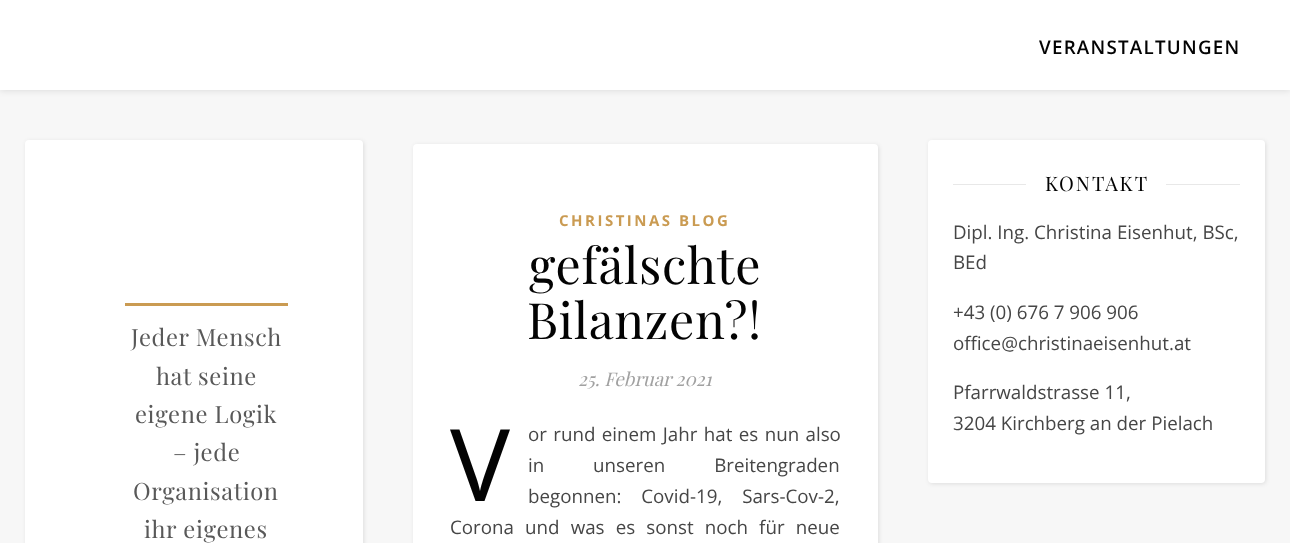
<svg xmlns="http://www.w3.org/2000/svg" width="1290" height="543">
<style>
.a{font:600 18.75px Open Sans;letter-spacing:1.25px;fill:#030303}
.b{font:23.75px Playfair Display;letter-spacing:0.6px;fill:#595959}
.c{font:bold 15px Open Sans;letter-spacing:2.5px;fill:#ca9b52}
.d{font:50px Playfair Display;letter-spacing:0.6px;fill:#030303}
.e{font:italic 18.75px Playfair Display;fill:#a1a1a1}
.f{font:100px Noto Sans;fill:#030303}
.g{font:18.75px Open Sans;fill:#464646}
.h{font:20px Playfair Display;letter-spacing:2px;fill:#030303}
</style>
<rect width="100%" height="100%" fill="#f7f7f7"/>
<path fill="#0000001a" filter="blur(3px)" d="M0 -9h1290v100H0z"/>
<path fill="#fff" d="M0 0h1290v90H0z"/>
<rect fill="#0000001a" filter="blur(2px)" x="26" y="141" width="338" height="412" rx="4"/>
<rect fill="#fff" x="25" y="140" width="338" height="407" rx="4"/>
<path fill="#ca9b52" d="M125 303h163v3H125z"/>
<rect fill="#0000001a" filter="blur(2px)" x="414" y="145" width="465" height="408" rx="4"/>
<rect fill="#fff" x="413" y="144" width="465" height="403" rx="4"/>
<rect fill="#0000001a" filter="blur(2px)" x="929" y="141" width="337" height="343" rx="4"/>
<rect fill="#fff" x="928" y="140" width="337" height="343" rx="4"/>
<path fill="#e8e8e8" d="M953 184h73v1H953z"/>
<path fill="#e8e8e8" d="M1166 184h74v1H1166z"/>
<text class="a" x="1039" y="54">VERANSTALTUNGEN</text>
<text class="b" x="131" y="346">Jeder Mensch</text>
<text class="b" x="156" y="385">hat seine</text>
<text class="b" x="135" y="423">eigene Logik</text>
<text class="b" x="173" y="461">– jede</text>
<text class="b" x="133" y="500">Organisation</text>
<text class="b" x="144" y="538">ihr eigenes</text>
<text class="c" x="559" y="226">CHRISTINAS BLOG</text>
<text class="d" x="529" y="284">gefälschte</text>
<text class="d" x="527" y="339">Bilanzen?!</text>
<text class="e" x="578" y="386">25. Februar 2021</text>
<text class="f" x="450" y="501">V</text>
<text class="g" x="528" y="441" word-spacing="1.5">or rund einem Jahr hat es nun also</text>
<text class="g" x="528" y="472" word-spacing="44">in unseren Breitengraden</text>
<text class="g" x="528" y="503" word-spacing="15">begonnen: Covid-19, Sars-Cov-2,</text>
<text class="g" x="450" y="534" word-spacing="6.25">Corona und was es sonst noch für neue</text>
<text class="h" x="1045" y="191">KONTAKT</text>
<text class="g" x="953" y="239">Dipl. Ing. Christina Eisenhut, BSc,</text>
<text class="g" x="953" y="269">BEd</text>
<text class="g" x="953" y="319">+43 (0) 676 7 906 906</text>
<text class="g" x="953" y="350">office@christinaeisenhut.at</text>
<text class="g" x="953" y="399">Pfarrwaldstrasse 11,</text>
<text class="g" x="953" y="430">3204 Kirchberg an der Pielach</text>
</svg>
